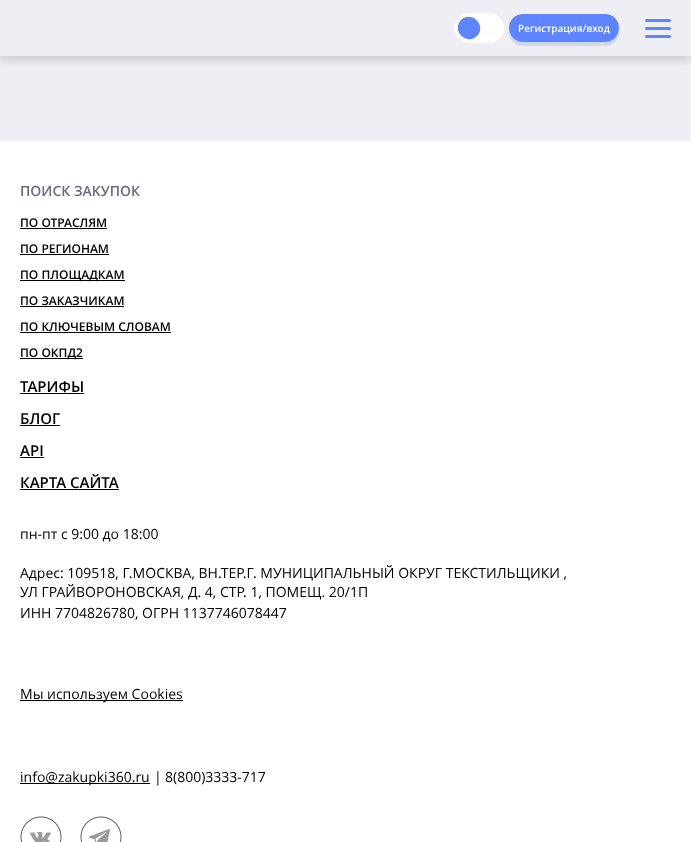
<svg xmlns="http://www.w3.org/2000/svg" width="691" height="842">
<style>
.a{font:600 10px Open Sans;fill:#fff}
.b{font:600 14px Open Sans;fill:#676c82}
.c{font:600 12px Open Sans;fill:#000}
.d{font:600 15px Open Sans;fill:#000}
.e{font:14px Open Sans;fill:#000}
</style>
<defs>
<clipPath id="clip1"><path d="M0 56h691v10H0z"/></clipPath>
</defs>
<rect width="100%" height="100%" fill="#edeff5"/>
<g clip-path="url(#clip1)">
<path fill="#00000026" filter="blur(5px)" d="M0 4h691v56H0z"/>
</g>
<rect fill="#fff" x="454" y="13" width="50" height="30" rx="15"/>
<path fill="#5e84ff" d="M461 20c10.5-10 26 5.5 16 16c-10.5 10-26-5.5-16-16z"/>
<path fill="#d3d8e8" d="M509 30v2c0 8 6 14 14 14h82c8 0 14-6 14-14v-2c-1 7-7 12-14 12h-82c-7 0-13-5-14-12z"/>
<rect fill="#5e84ff" x="509" y="14" width="110" height="28" rx="14"/>
<rect fill="#5e84ff" x="645" y="19" width="26" height="3" rx="1.5"/>
<rect fill="#5e84ff" x="645" y="27" width="26" height="3" rx="1.5"/>
<rect fill="#5e84ff" x="645" y="35" width="26" height="3" rx="1.5"/>
<path fill="#fff" d="M0 141h691v701H0z"/>
<path fill="#000" d="M20 228h87v1H20z"/>
<path fill="#000" d="M20 254h89v1H20z"/>
<path fill="#000" d="M20 280h105v1H20z"/>
<path fill="#000" d="M20 306h104v1H20z"/>
<path fill="#000" d="M20 332h151v1H20z"/>
<path fill="#000" d="M20 358h63v1H20z"/>
<path fill="#000" d="M20 393h64v1H20z"/>
<path fill="#000" d="M20 425h40v1H20z"/>
<path fill="#000" d="M20 457h24v1H20z"/>
<path fill="#000" d="M20 489h99v1H20z"/>
<path fill="#000" d="M20 700h163v1H20z"/>
<path fill="#000" d="M20 783h130v1H20z"/>
<image href="1.png" x="20" y="816" width="42" height="26"/>
<image href="2.png" x="80" y="816" width="42" height="26"/>
<text class="a" x="518" y="32">Регистрация/вход</text>
<text class="b" x="20" y="196">ПОИСК ЗАКУПОК</text>
<text class="c" x="20" y="227">ПО ОТРАСЛЯМ</text>
<text class="c" x="20" y="253">ПО РЕГИОНАМ</text>
<text class="c" x="20" y="279">ПО ПЛОЩАДКАМ</text>
<text class="c" x="20" y="305">ПО ЗАКАЗЧИКАМ</text>
<text class="c" x="20" y="331">ПО КЛЮЧЕВЫМ СЛОВАМ</text>
<text class="c" x="20" y="357">ПО ОКПД2</text>
<text class="d" x="20" y="392">ТАРИФЫ</text>
<text class="d" x="20" y="424">БЛОГ</text>
<text class="d" x="20" y="456">API</text>
<text class="d" x="20" y="488">КАРТА САЙТА</text>
<text class="e" x="20" y="539">пн-пт с 9:00 до 18:00</text>
<text class="e" x="20" y="578">Адрес: 109518, Г.МОСКВА, ВН.ТЕР.Г. МУНИЦИПАЛЬНЫЙ ОКРУГ ТЕКСТИЛЬЩИКИ ,</text>
<text class="e" x="20" y="597">УЛ ГРАЙВОРОНОВСКАЯ, Д. 4, СТР. 1, ПОМЕЩ. 20/1П</text>
<text class="e" x="20" y="618">ИНН 7704826780, ОГРН 1137746078447</text>
<text class="e" x="20" y="699">Мы используем Cookies</text>
<text class="e" x="20" y="782">info@zakupki360.ru</text>
<text class="e" x="154" y="782">|</text>
<text class="e" x="165" y="782">8(800)3333-717</text>
</svg>
